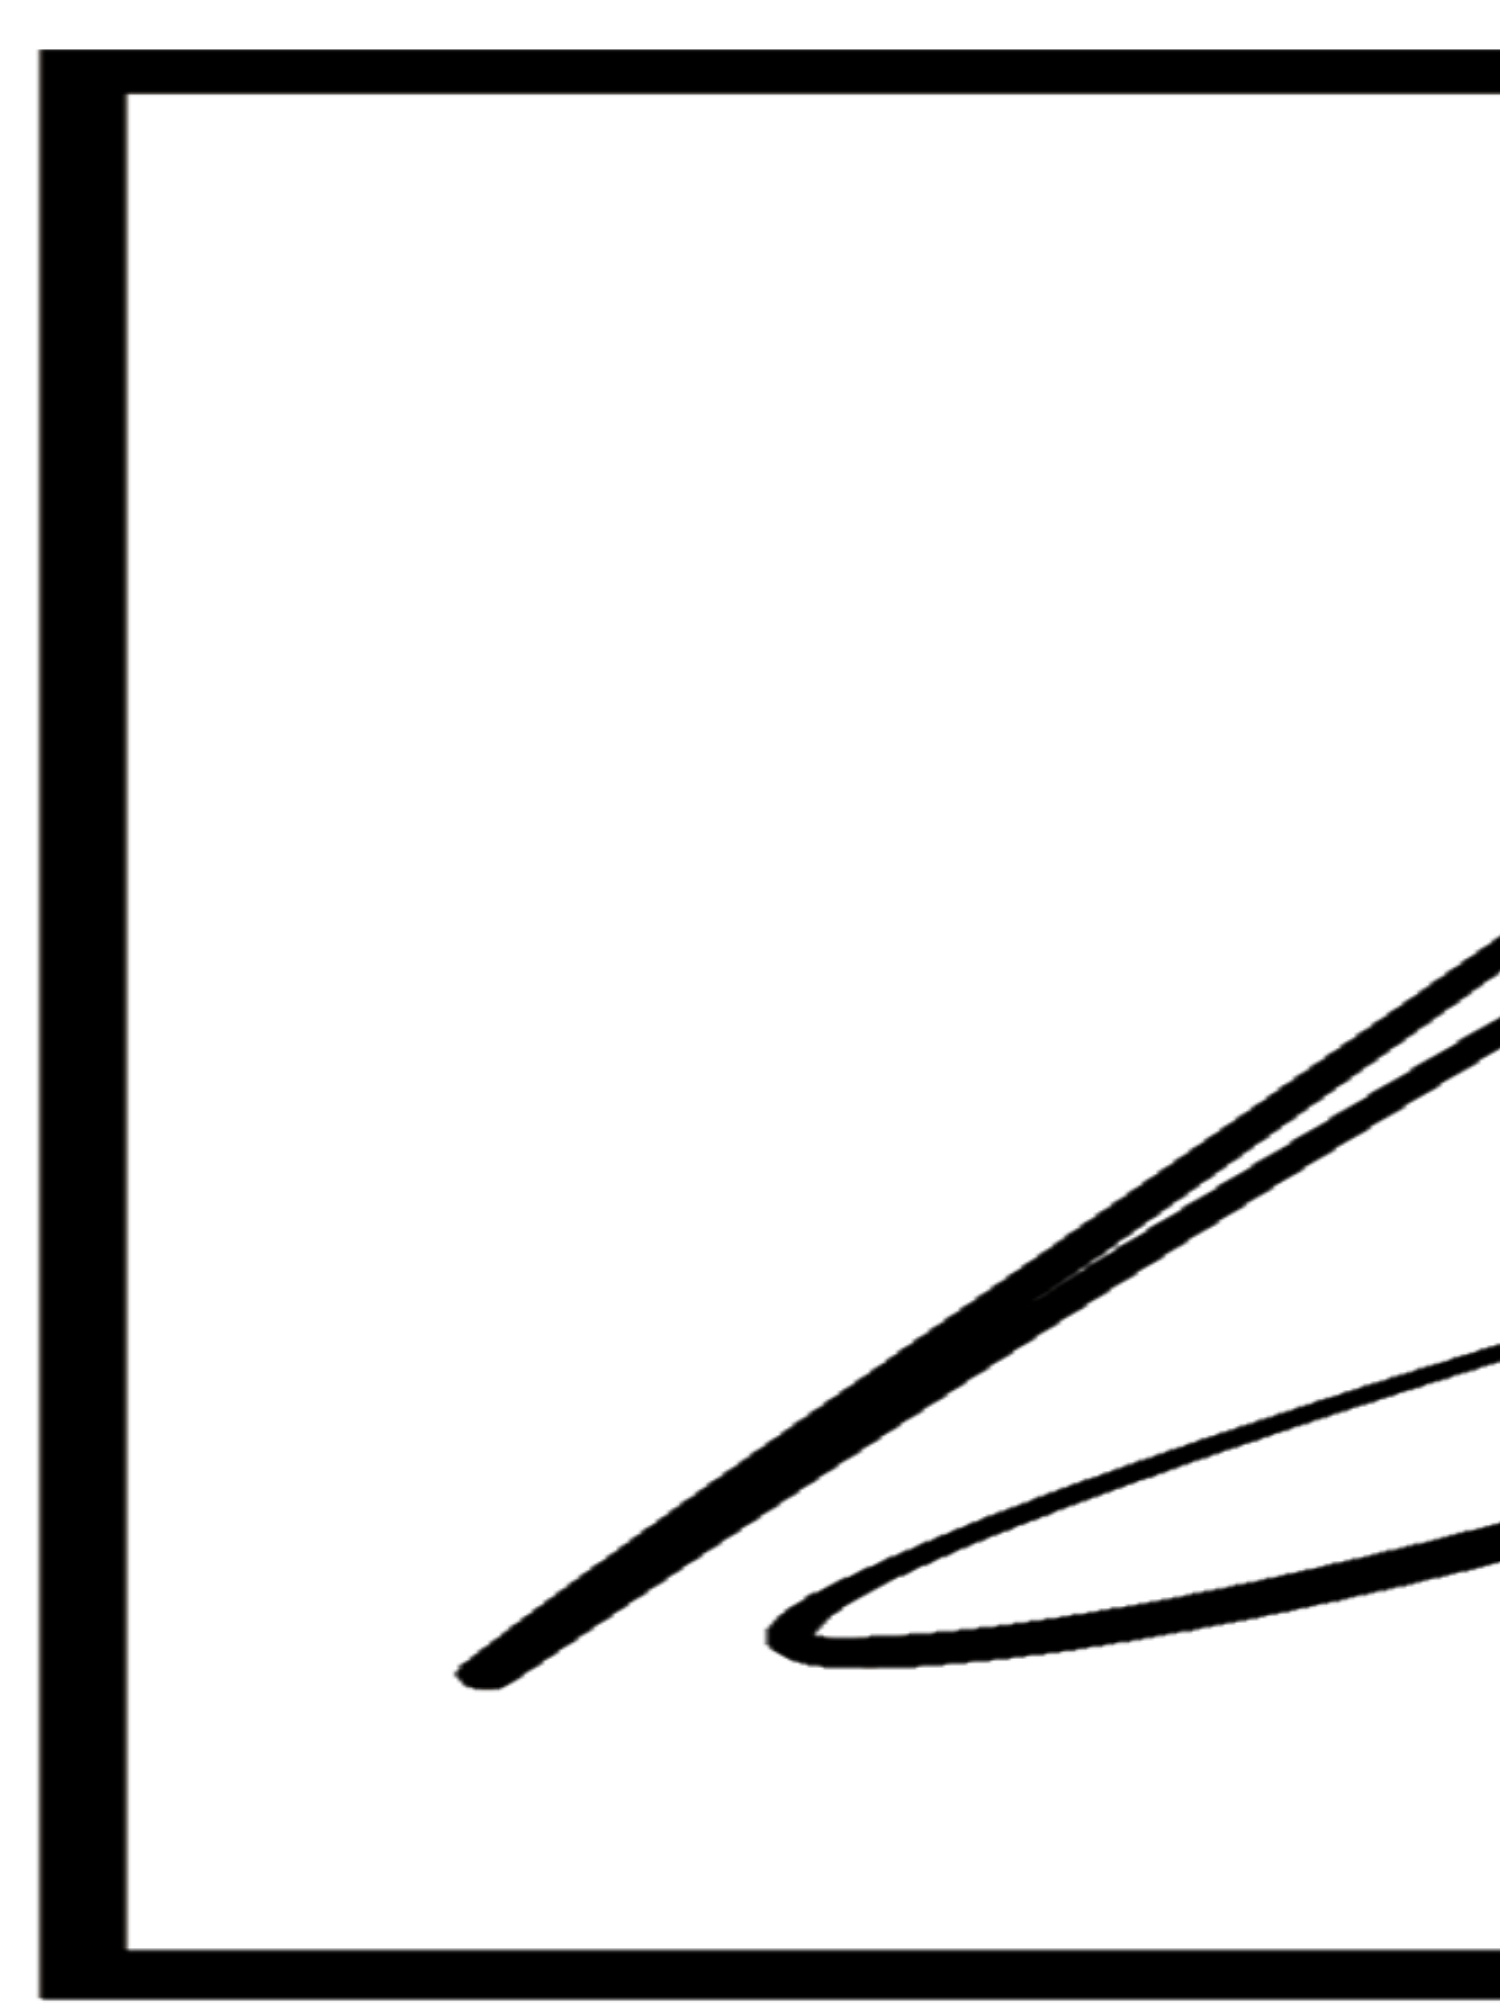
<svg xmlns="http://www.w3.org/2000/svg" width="1500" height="2003">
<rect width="100%" height="100%" fill="#fff"/>
<image href="1.png" x="35" y="49" width="1465" height="1954"/>
</svg>
